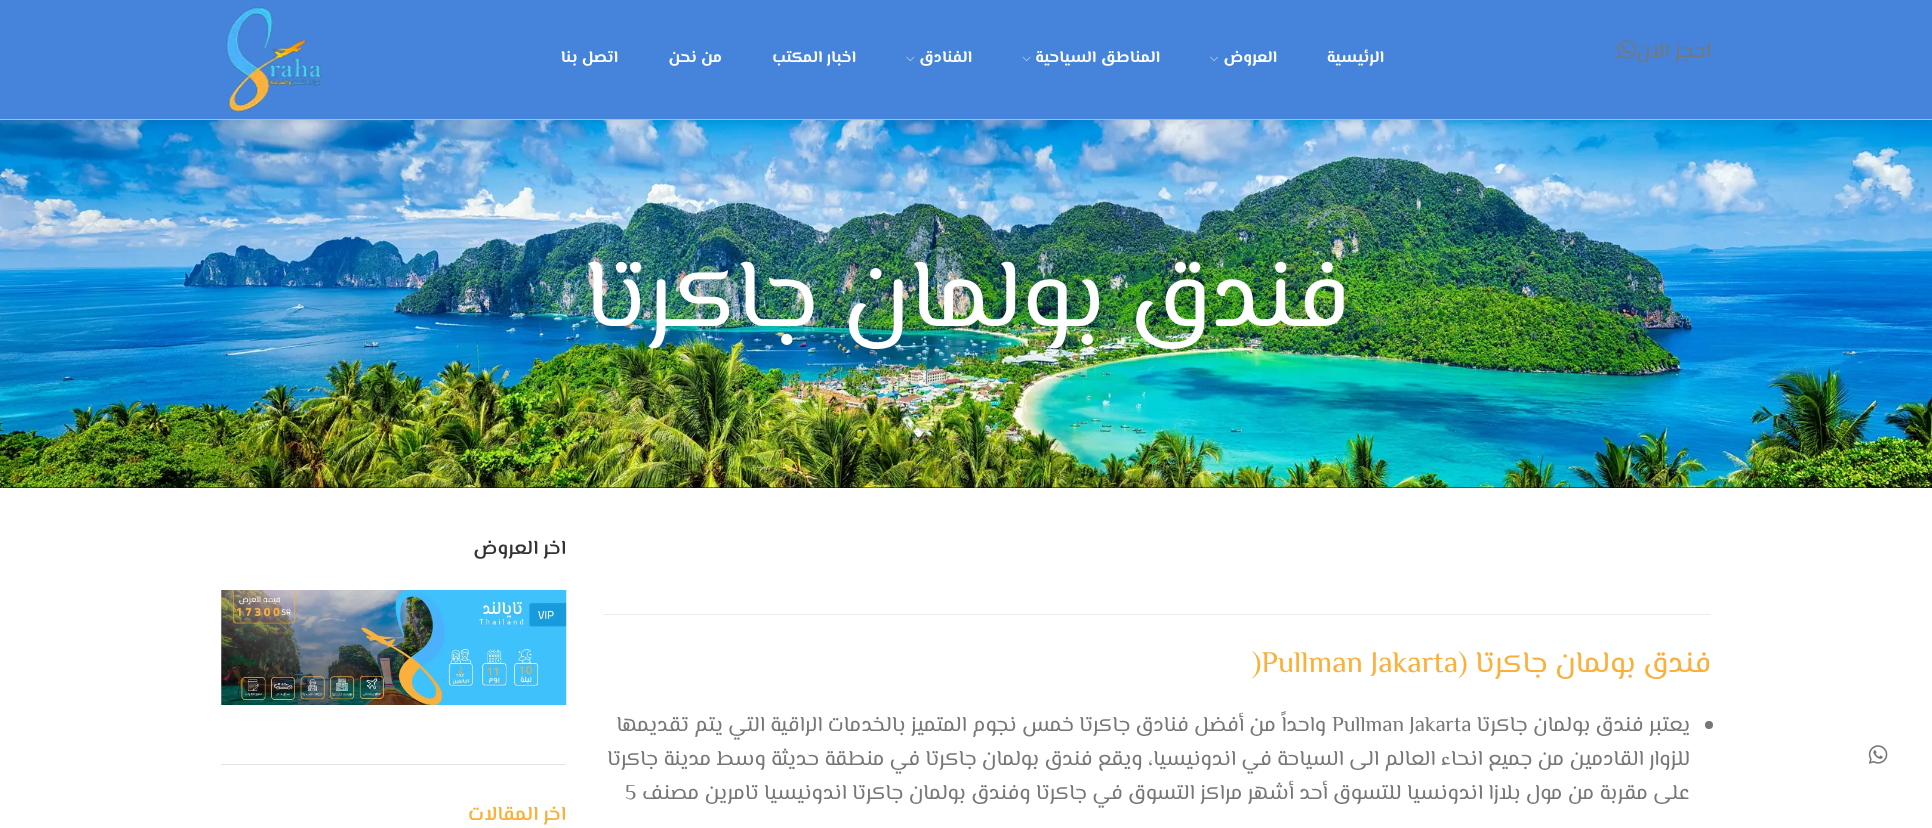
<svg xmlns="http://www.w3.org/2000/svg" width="1932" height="828">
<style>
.a{font:21.25px El Messiri;direction:rtl;fill:#777}
.b{font:bold 16.25px El Messiri;direction:rtl;fill:#fff}
.c{font:97.5px El Messiri;direction:rtl;fill:#fff}
.d{font:30px El Messiri;direction:rtl;fill:#fbb03b}
.e{font:30px El Messiri;fill:#fbb03b}
.f{font:21.25px El Messiri;fill:#777}
.g{font:600 20px El Messiri;direction:rtl;fill:#333}
.h{font:600 20px El Messiri;direction:rtl;fill:#fbb03b}
</style>
<rect width="100%" height="100%" fill="#fff"/>
<image href="1.png" x="1868" y="745" width="20" height="19"/>
<path fill="#0a0a0a" d="M0 487h1932v1H0z"/>
<image href="7.png" x="0" y="120" width="1932" height="368"/>
<path fill="#0000001a" filter="blur(5px)" d="M0 1h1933v120H0z"/>
<path fill="#4584da" d="M0 0h1932v119H0z"/>
<path fill="#fbb03b" d="M0 119h1932v1H0z"/>
<image href="2.png" x="1617" y="40" width="20" height="19"/>
<image href="3.png" x="1210" y="56" width="8" height="6"/>
<image href="4.png" x="1022" y="56" width="9" height="6"/>
<image href="5.png" x="906" y="56" width="9" height="6"/>
<image href="6.png" x="226" y="7" width="97" height="105"/>
<path fill="#ebebeb" d="M604 614h1107v1H604z"/>
<circle fill="#777" cx="1709" cy="725" r="4"/>
<path fill="#e4e4e4" d="M221 764h345v1H221z"/>
<image href="8.png" x="221" y="590" width="346" height="115"/>
<text class="a" x="1711" y="57">احجز الان</text>
<text class="b" x="1384" y="62">الرئيسية</text>
<text class="b" x="1277" y="62">العروض</text>
<text class="b" x="1160" y="62">المناطق السياحية</text>
<text class="b" x="972" y="62">الفنادق</text>
<text class="b" x="856" y="62">اخبار المكتب</text>
<text class="b" x="722" y="62">من نحن</text>
<text class="b" x="618" y="62">اتصل بنا</text>
<text class="c" x="1350" y="326">فندق بولمان جاكرتا</text>
<text class="d" x="1711" y="672">فندق بولمان جاكرتا (</text>
<text class="e" x="1252" y="672">)Pullman Jakarta</text>
<text class="a" x="1690" y="731">يعتبر فندق بولمان جاكرتا</text>
<text class="f" x="1332" y="731">Pullman Jakarta</text>
<text class="a" x="1326" y="731">واحداً من أفضل فنادق جاكرتا خمس نجوم المتميز بالخدمات الراقية التي يتم تقديمها</text>
<text class="a" x="1690" y="765">للزوار القادمين من جميع انحاء العالم الى السياحة في اندونيسيا، ويقع فندق بولمان جاكرتا في منطقة حديثة وسط مدينة جاكرتا</text>
<text class="a" x="1690" y="799">على مقربة من مول بلازا اندونسيا للتسوق أحد أشهر مراكز التسوق في جاكرتا وفندق بولمان جاكرتا اندونيسيا تامرين مصنف</text>
<text class="f" x="625" y="799">5</text>
<text class="g" x="566" y="554">اخر العروض</text>
<text class="h" x="566" y="820">اخر المقالات</text>
</svg>
